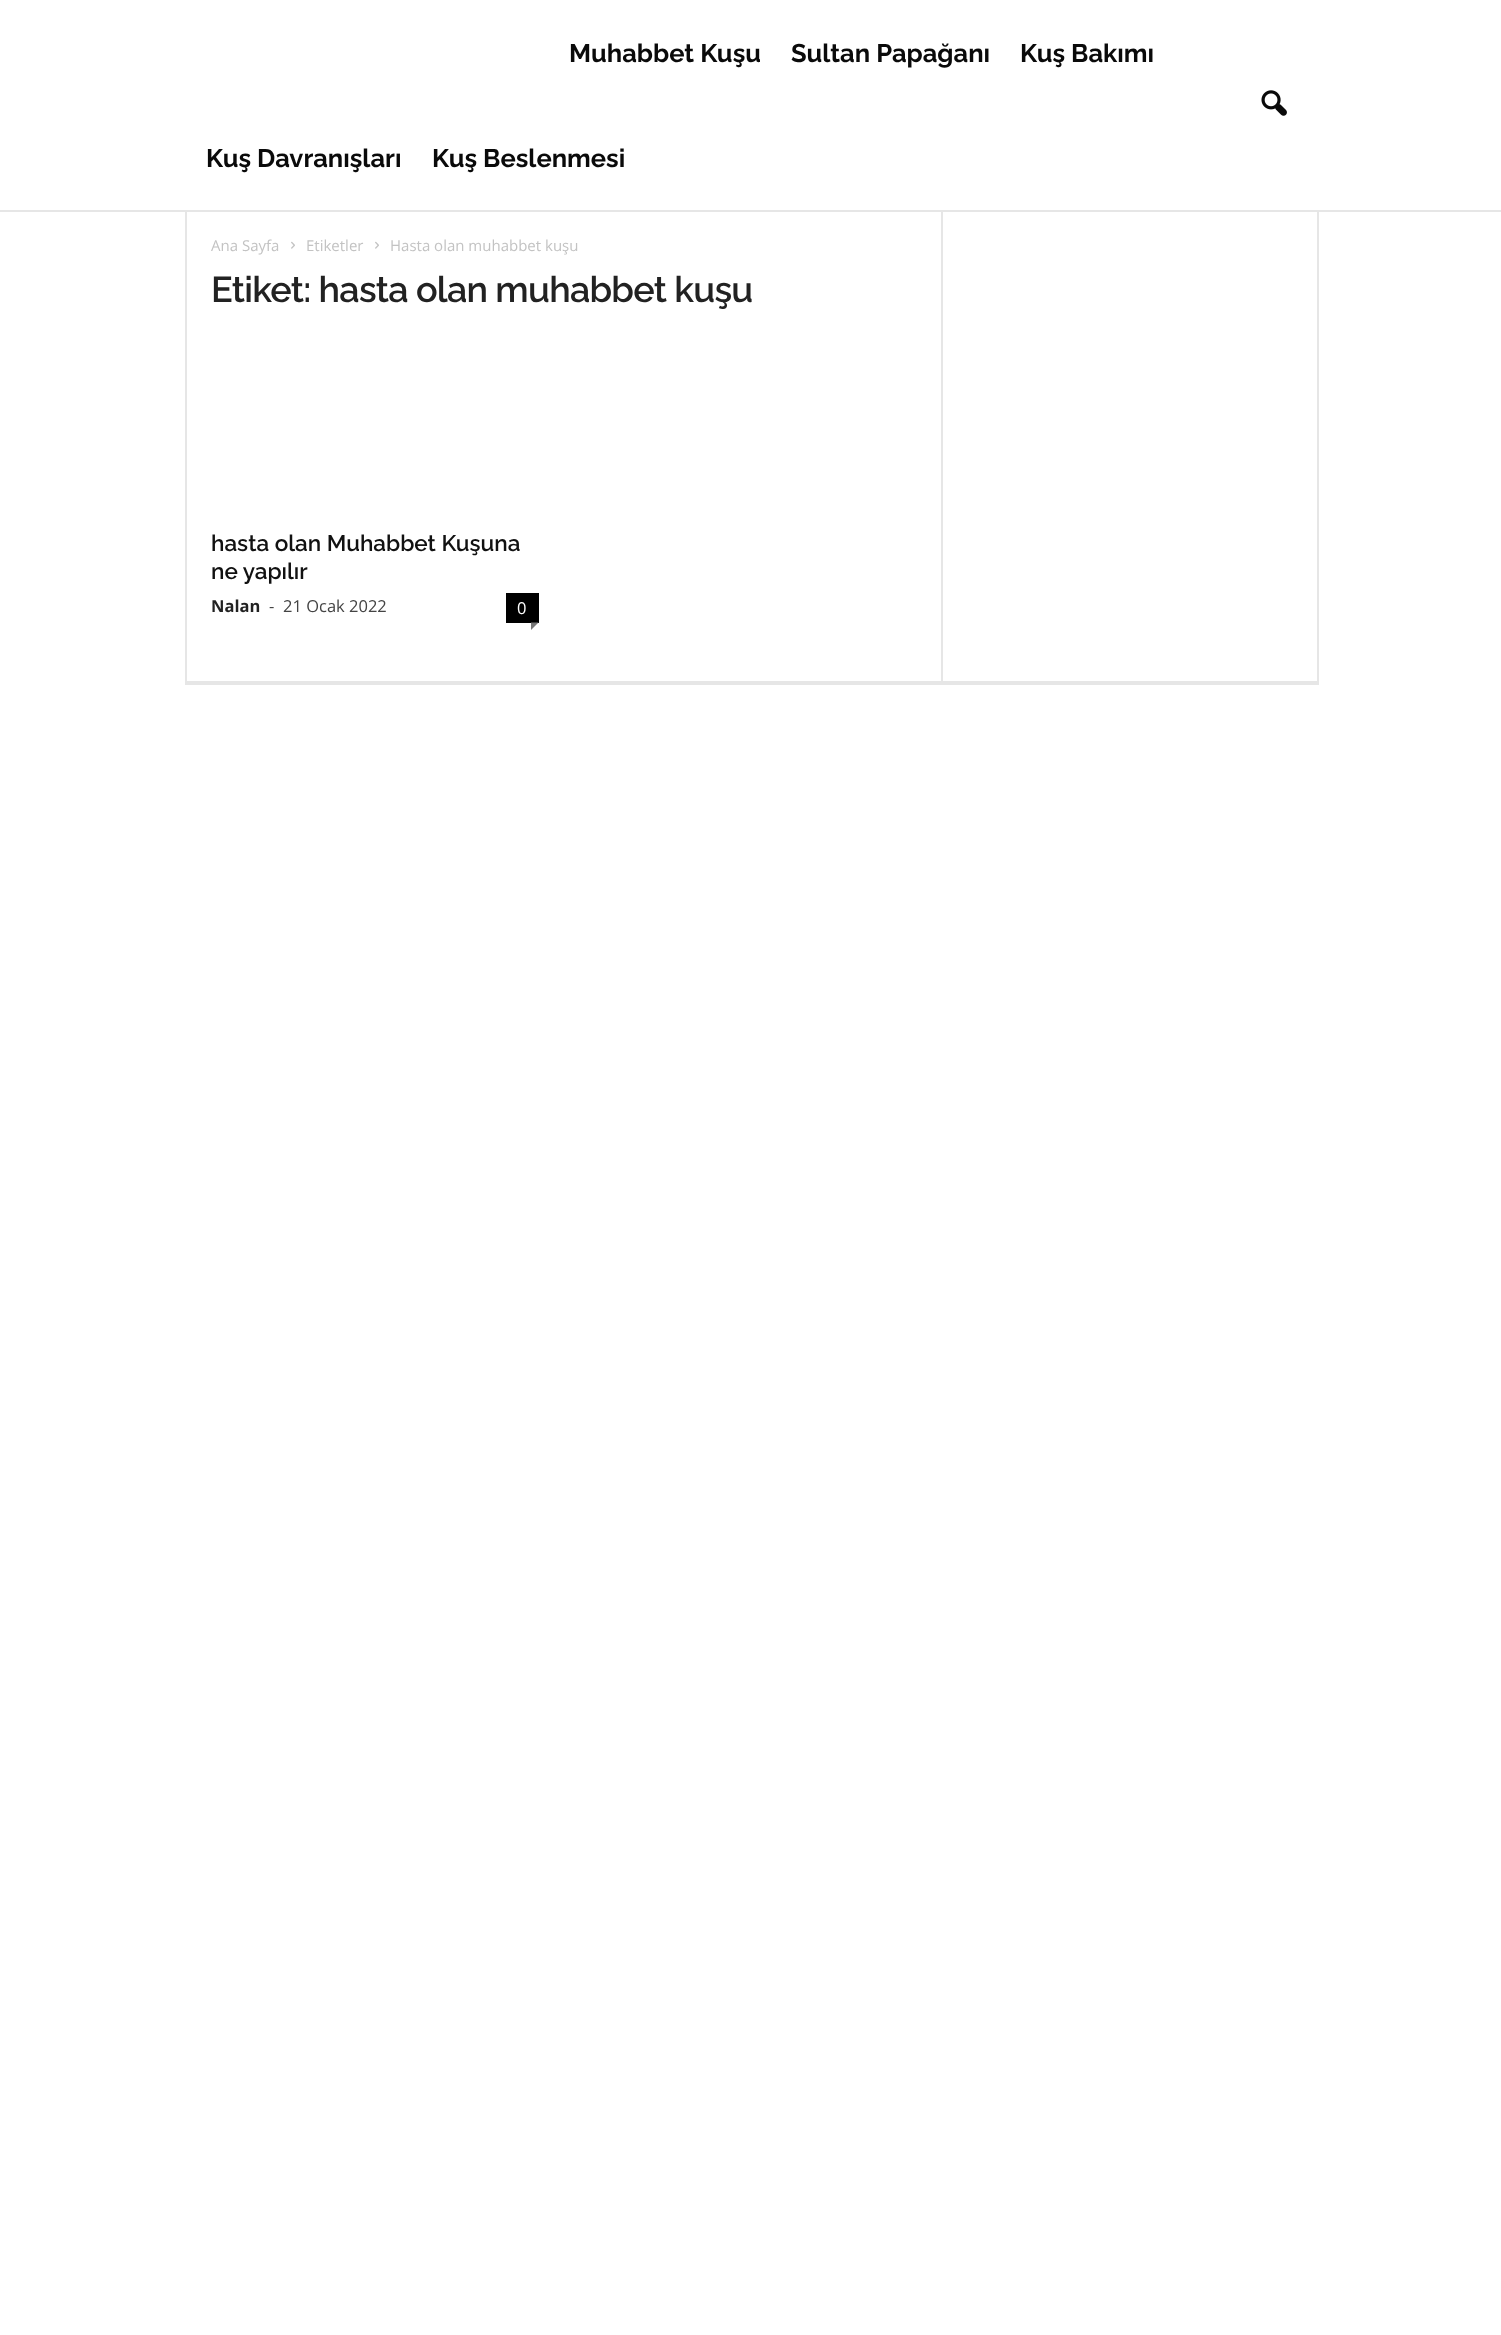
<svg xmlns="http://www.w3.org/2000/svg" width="1501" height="2335">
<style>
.a{font:bold 25.5px Raleway;fill:#0a0a0a}
.b{font:15px Open Sans;fill:#c3c3c3}
.c{font:600 36px Raleway;letter-spacing:-0.75px;fill:#222}
.d{font:600 22.5px Raleway;fill:#111}
.e{font:bold 16.5px Open Sans;fill:#222}
.f{font:16.5px Open Sans;fill:#444}
.g{font:16.5px Open Sans;fill:#fff}
</style>
<rect width="100%" height="100%" fill="#fff"/>
<path fill="#e6e6e6" d="M0 210h1501v2H0z"/>
<image href="1.png" x="1261" y="90" width="26" height="26"/>
<path fill="#e6e6e6" d="M185 681h1134v4H185z"/>
<path fill="#e6e6e6" d="M185 212h2v469H185z"/>
<image href="2.png" x="291" y="241" width="4" height="8"/>
<image href="2.png" x="375" y="241" width="4" height="8"/>
<path fill="#000" d="M506 593h33v30H506z"/>
<path fill="#777" d="M531 622.5h7.5l-7.5 7.5z"/>
<path fill="#e6e6e6" d="M941 212h2v469H941z"/>
<path fill="#e6e6e6" d="M1317 212h2v469H1317z"/>
<text class="a" x="569" y="62">Muhabbet Kuşu</text>
<text class="a" x="791" y="62">Sultan Papağanı</text>
<text class="a" x="1020" y="62">Kuş Bakımı</text>
<text class="a" x="206" y="167">Kuş Davranışları</text>
<text class="a" x="432" y="167">Kuş Beslenmesi</text>
<text class="b" x="211" y="251">Ana Sayfa</text>
<text class="b" x="306" y="251">Etiketler</text>
<text class="b" x="390" y="251">Hasta olan muhabbet kuşu</text>
<text class="c" x="211" y="302">Etiket: hasta olan muhabbet kuşu</text>
<text class="d" x="211" y="551">hasta olan Muhabbet Kuşuna</text>
<text class="d" x="211" y="579">ne yapılır</text>
<text class="e" x="211" y="612">Nalan</text>
<text class="f" x="269" y="612">-</text>
<text class="f" x="283" y="612">21 Ocak 2022</text>
<text class="g" x="517" y="614">0</text>
</svg>
